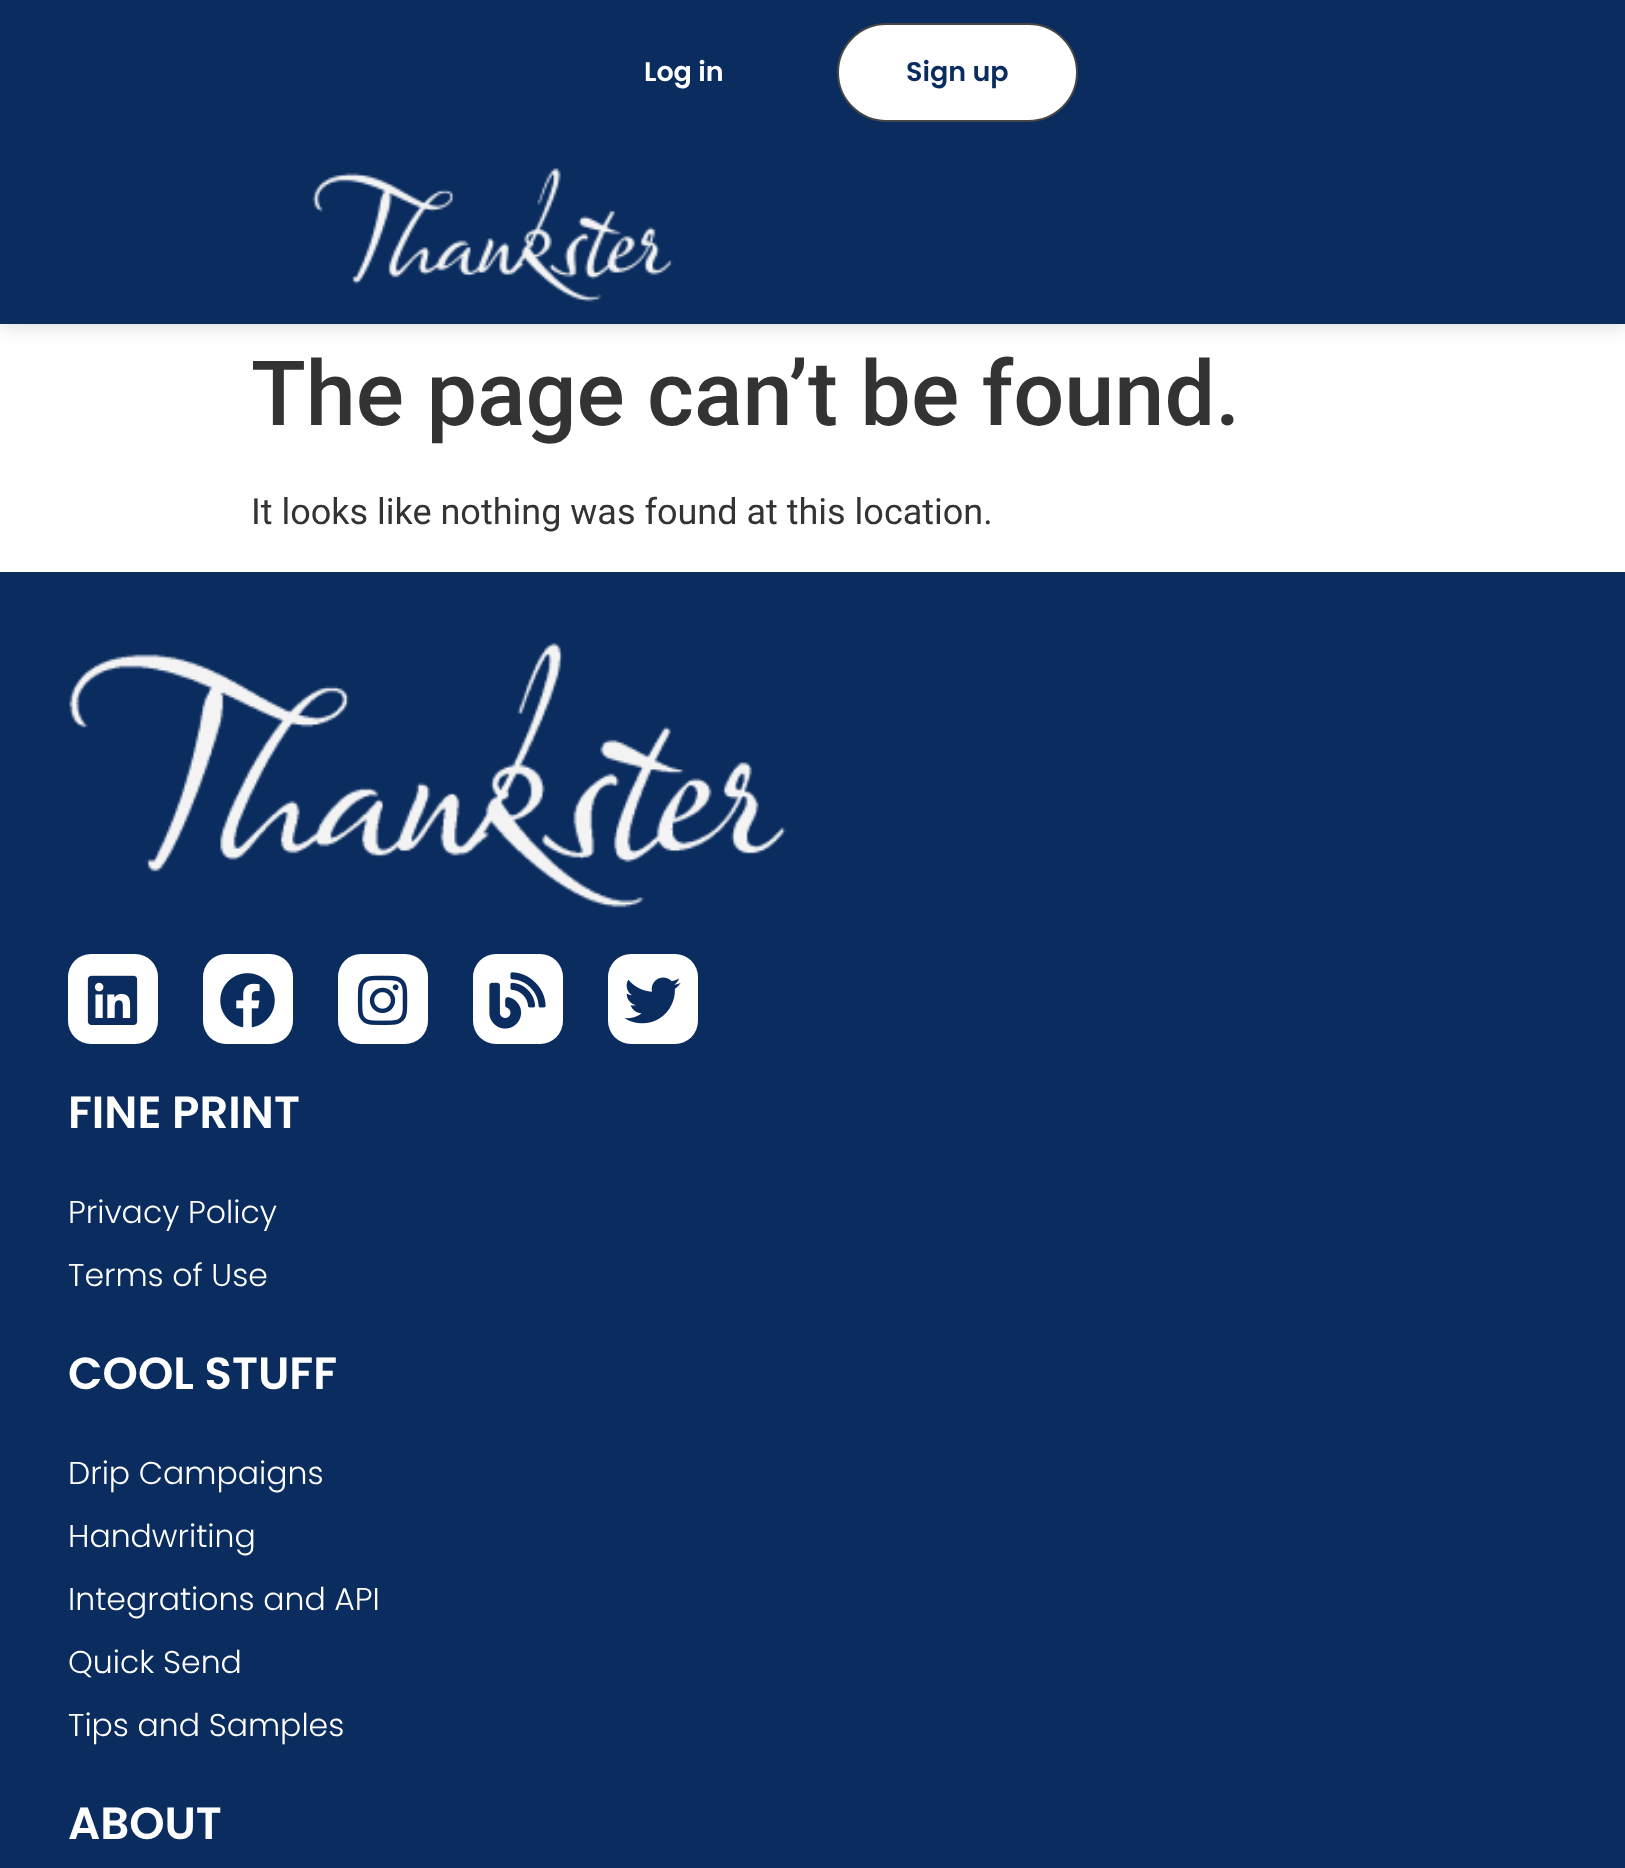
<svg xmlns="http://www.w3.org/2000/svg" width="1625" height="1868">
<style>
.a{font:600 27px Poppins;fill:#fff}
.b{font:600 27px Poppins;fill:#0a2c5f}
.c{font:500 90px Roboto;fill:#333}
.d{font:36px Roboto;fill:#333}
.e{font:600 45px Poppins;fill:#fff}
.f{font:300 31.5px Poppins;fill:#fff}
</style>
<rect width="100%" height="100%" fill="#fff"/>
<path fill="#0000002b" filter="blur(11px)" d="M0 0h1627v324H0z"/>
<path fill="#0a2c5f" d="M0 0h1625v324H0z"/>
<rect fill="#fff" stroke="#464646" stroke-width="2" x="838" y="24" width="239" height="97" rx="48.5"/>
<image href="1.png" x="312" y="168" width="361" height="134"/>
<path fill="#0a2c5f" d="M0 572h1625v1296H0z"/>
<image href="2.png" x="69" y="643" width="717" height="265"/>
<rect fill="#fff" x="68" y="954" width="90" height="90" rx="23"/>
<image href="3.png" x="87" y="975" width="51" height="50"/>
<rect fill="#fff" x="203" y="954" width="90" height="90" rx="23"/>
<image href="4.png" x="220" y="973" width="55" height="55"/>
<rect fill="#fff" x="338" y="954" width="90" height="90" rx="23"/>
<image href="5.png" x="357" y="975" width="51" height="50"/>
<rect fill="#fff" x="473" y="954" width="90" height="90" rx="23"/>
<image href="6.png" x="489" y="972" width="57" height="57"/>
<rect fill="#fff" x="608" y="954" width="90" height="90" rx="23"/>
<image href="7.png" x="624" y="977" width="57" height="47"/>
<text class="a" x="644" y="81">Log in</text>
<text class="b" x="906" y="81">Sign up</text>
<text class="c" x="251" y="425">The page can’t be found.</text>
<text class="d" x="251" y="524">It looks like nothing was found at this location.</text>
<text class="e" x="68" y="1128">FINE PRINT</text>
<text class="f" x="68" y="1223">Privacy Policy</text>
<text class="f" x="68" y="1286">Terms of Use</text>
<text class="e" x="68" y="1389">COOL STUFF</text>
<text class="f" x="68" y="1484">Drip Campaigns</text>
<text class="f" x="68" y="1547">Handwriting</text>
<text class="f" x="68" y="1610">Integrations and API</text>
<text class="f" x="68" y="1673">Quick Send</text>
<text class="f" x="68" y="1736">Tips and Samples</text>
<text class="e" x="68" y="1839">ABOUT</text>
</svg>
